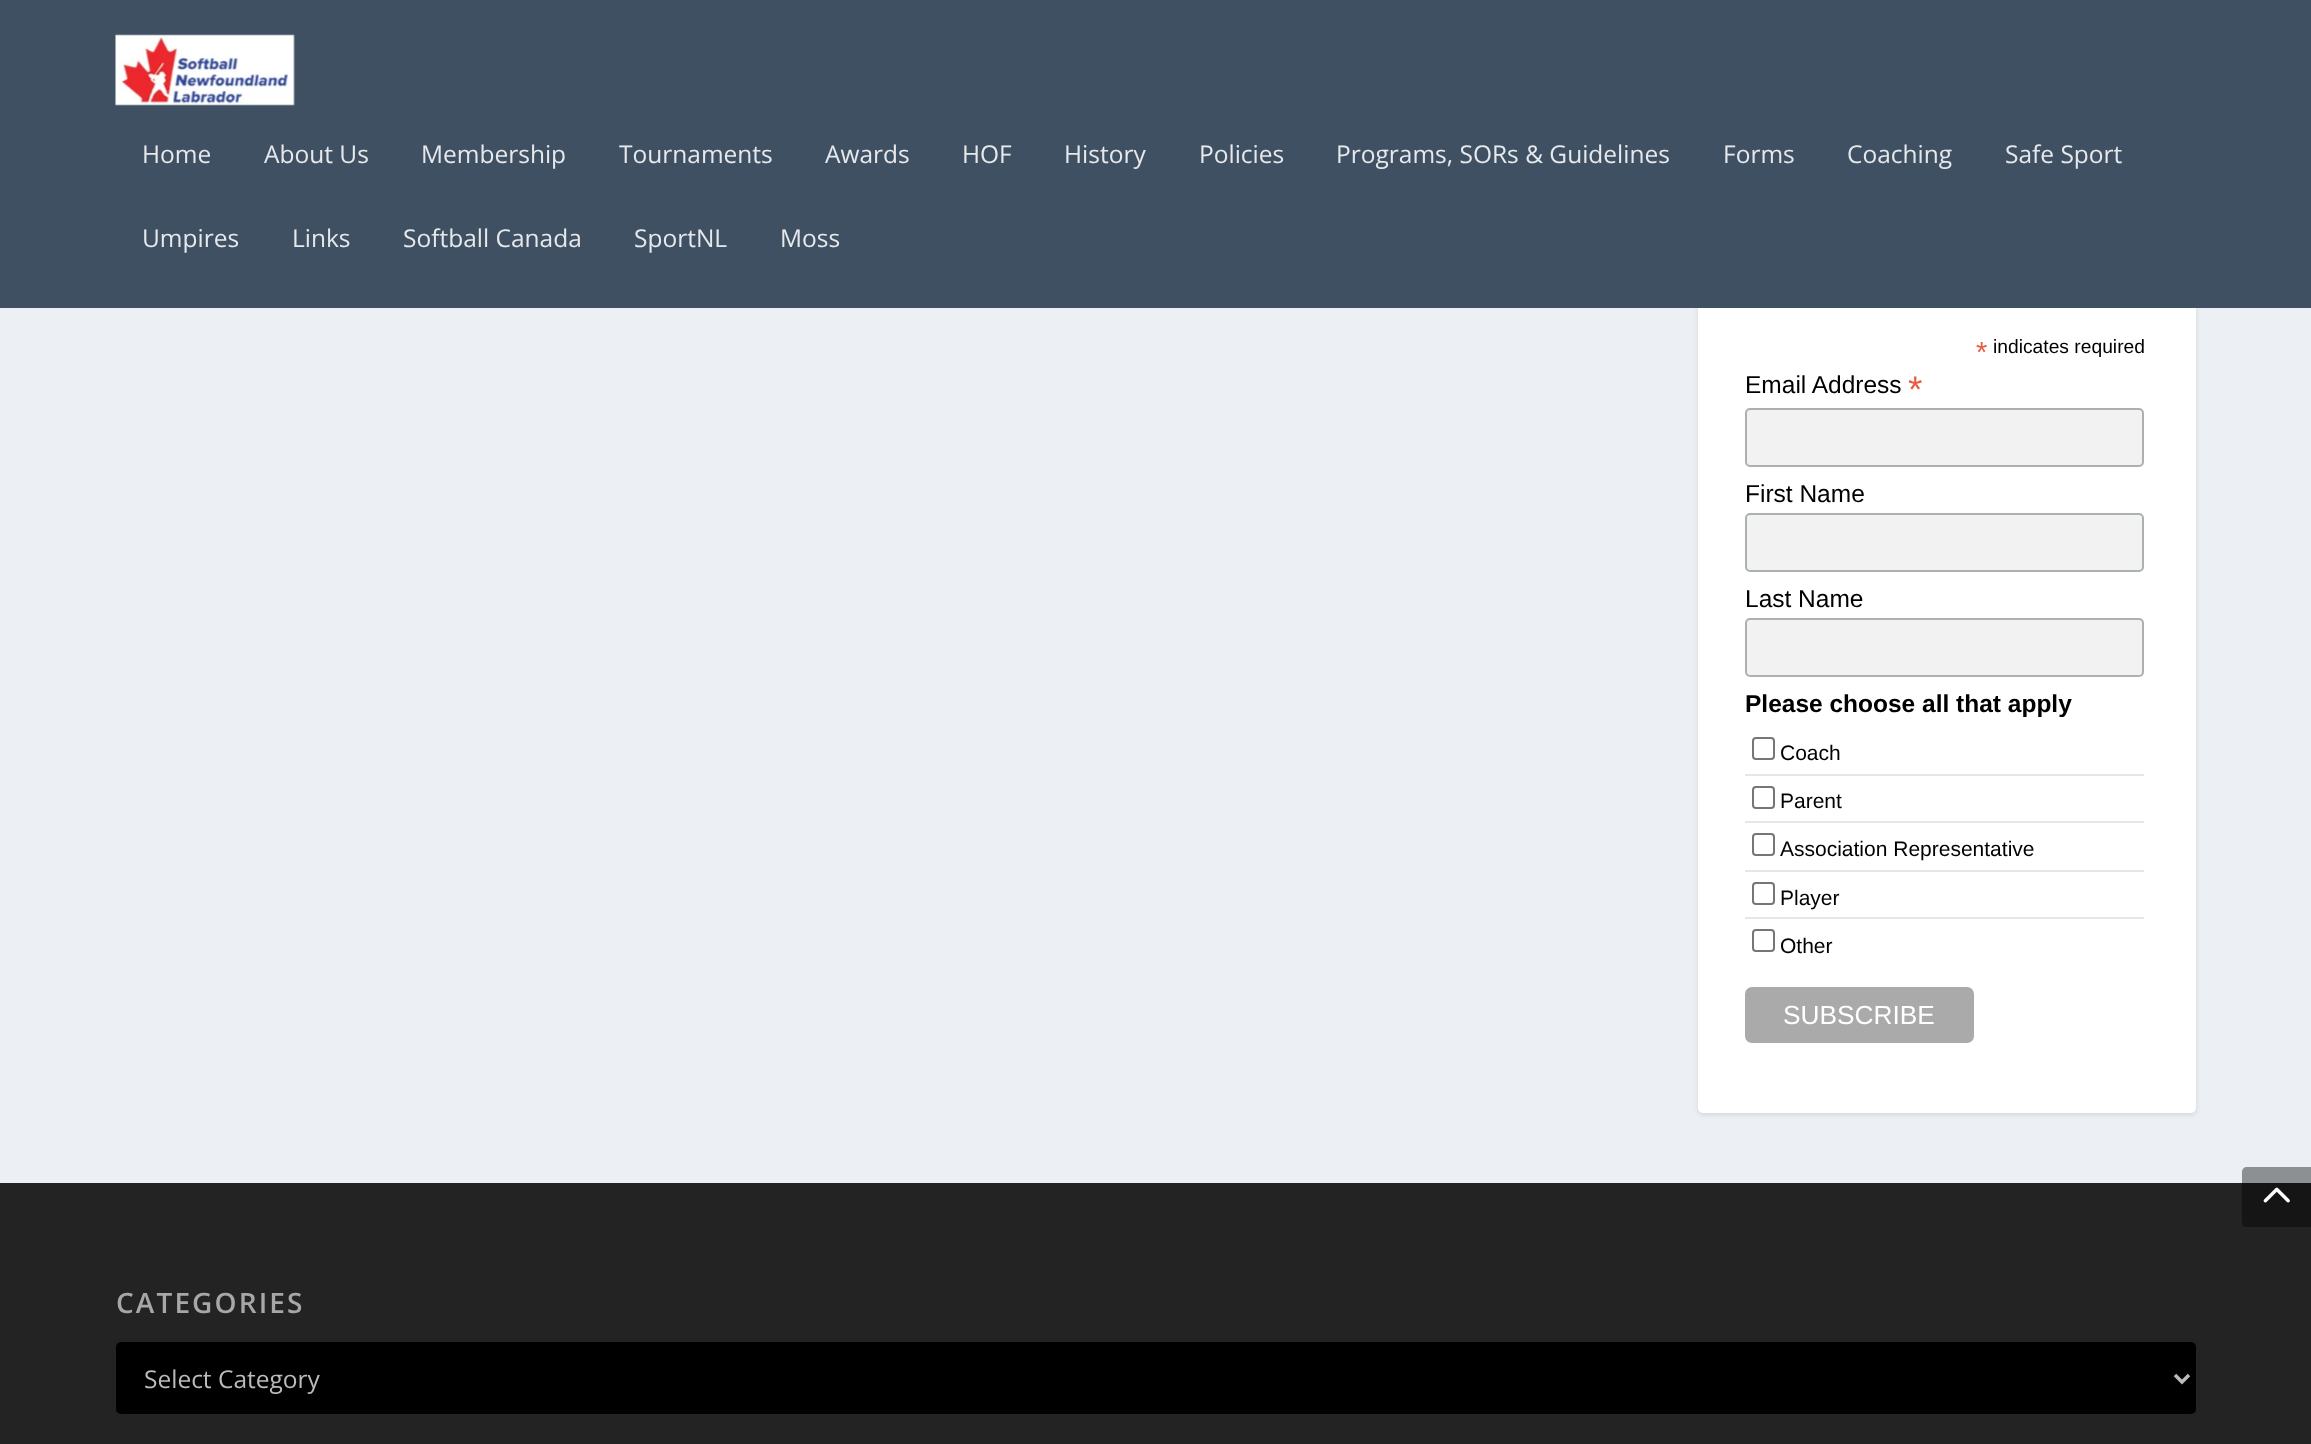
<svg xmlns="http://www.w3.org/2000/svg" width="2311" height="1444">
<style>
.a{font:24.5px Open Sans;fill:#e6e8eb}
.b{font:29px Liberation Sans;fill:#e85c41}
.c{font:19.25px Liberation Sans;fill:#000}
.d{font:24.5px Liberation Sans;fill:#000}
.e{font:37px Liberation Sans;fill:#e85c41}
.f{font:bold 24.5px Liberation Sans;fill:#000}
.g{font:21px Liberation Sans;fill:#000}
.h{font:26.25px Liberation Sans;fill:#fff}
.i{font:600 28px Open Sans;letter-spacing:2.1px;fill:#a7a7a7}
.j{font:24.5px Open Sans;fill:#bbb}
</style>
<rect width="100%" height="100%" fill="#ecf0f5"/>
<rect fill="#0000001a" filter="blur(2.5px)" x="1698" y="54" width="498" height="1061" rx="5"/>
<rect fill="#fff" x="1698" y="53" width="498" height="1060" rx="5"/>
<path fill="#3e5062" d="M0 0h2311v308H0z"/>
<image href="1.png" x="115" y="34" width="180" height="72"/>
<rect fill="#f2f2f2" stroke="#abb0b2" stroke-width="2" x="1746" y="409" width="397" height="57" rx="4"/>
<rect fill="#f2f2f2" stroke="#abb0b2" stroke-width="2" x="1746" y="514" width="397" height="57" rx="4"/>
<rect fill="#f2f2f2" stroke="#abb0b2" stroke-width="2" x="1746" y="619" width="397" height="57" rx="4"/>
<path fill="#e6e6e6" d="M1745 774h399v2H1745z"/>
<rect fill="none" stroke="#767676" stroke-width="2" x="1753" y="738" width="21" height="21" rx="3"/>
<path fill="#e6e6e6" d="M1745 821h399v2H1745z"/>
<rect fill="none" stroke="#767676" stroke-width="2" x="1753" y="787" width="21" height="21" rx="3"/>
<path fill="#e6e6e6" d="M1745 870h399v2H1745z"/>
<rect fill="none" stroke="#767676" stroke-width="2" x="1753" y="834" width="21" height="21" rx="3"/>
<path fill="#e6e6e6" d="M1745 917h399v2H1745z"/>
<rect fill="none" stroke="#767676" stroke-width="2" x="1753" y="883" width="21" height="21" rx="3"/>
<rect fill="none" stroke="#767676" stroke-width="2" x="1753" y="930" width="21" height="21" rx="3"/>
<rect fill="#aaa" x="1745" y="987" width="229" height="56" rx="7"/>
<path fill="#232323" d="M0 1183h2311v261H0z"/>
<rect fill="#000" x="116" y="1342" width="2080" height="72" rx="5"/>
<path fill="none" stroke="#bbb" stroke-width="3.5" d="M2175 1375l7 7l7-7"/>
<path fill="#00000066" d="M2247 1167h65v60h-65c-3 0-5-2-5-5v-50c0-3 2-5 5-5z"/>
<image href="2.png" x="2263" y="1187" width="27" height="16"/>
<text class="a" x="142" y="163">Home</text>
<text class="a" x="264" y="163">About Us</text>
<text class="a" x="421" y="163">Membership</text>
<text class="a" x="619" y="163">Tournaments</text>
<text class="a" x="825" y="163">Awards</text>
<text class="a" x="962" y="163">HOF</text>
<text class="a" x="1064" y="163">History</text>
<text class="a" x="1199" y="163">Policies</text>
<text class="a" x="1336" y="163">Programs, SORs &amp; Guidelines</text>
<text class="a" x="1723" y="163">Forms</text>
<text class="a" x="1847" y="163">Coaching</text>
<text class="a" x="2005" y="163">Safe Sport</text>
<text class="a" x="142" y="247">Umpires</text>
<text class="a" x="292" y="247">Links</text>
<text class="a" x="403" y="247">Softball Canada</text>
<text class="a" x="634" y="247">SportNL</text>
<text class="a" x="780" y="247">Moss</text>
<text class="b" x="1976" y="362">*</text>
<text class="c" x="1993" y="353">indicates required</text>
<text class="d" x="1745" y="393">Email Address</text>
<text class="e" x="1908" y="402">*</text>
<text class="d" x="1745" y="502">First Name</text>
<text class="d" x="1745" y="607">Last Name</text>
<text class="f" x="1745" y="712">Please choose all that apply</text>
<text class="g" x="1780" y="760">Coach</text>
<text class="g" x="1780" y="808">Parent</text>
<text class="g" x="1780" y="856">Association Representative</text>
<text class="g" x="1780" y="905">Player</text>
<text class="g" x="1780" y="953">Other</text>
<text class="h" x="1783" y="1024">SUBSCRIBE</text>
<text class="i" x="116" y="1313">CATEGORIES</text>
<text class="j" x="144" y="1388">Select Category</text>
</svg>
